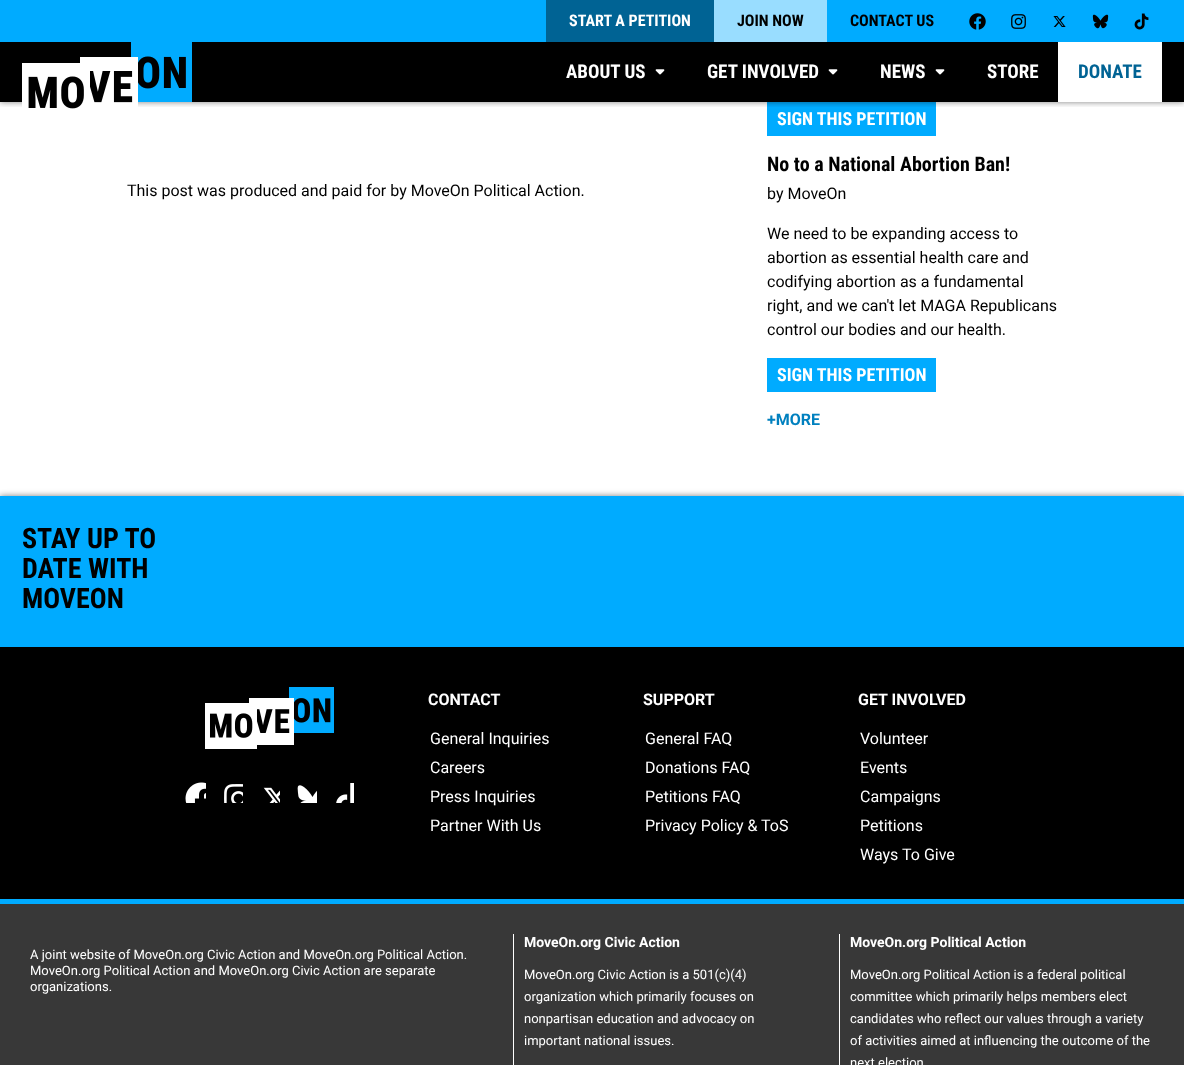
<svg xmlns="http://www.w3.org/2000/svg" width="1184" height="1065">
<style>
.a{font:bold 16px Roboto Condensed;fill:#fff}
.b{font:bold 16px Roboto Condensed;fill:#000}
.c{font:bold 19px Roboto Condensed;fill:#fff}
.d{font:bold 19px Roboto Condensed;fill:#006394}
.e{font:16px Roboto;fill:#000}
.f{font:bold 18px Roboto Condensed;fill:#fff}
.g{font:bold 20px Roboto Condensed;fill:#000}
.h{font:bold 16px Roboto;fill:#0080bf}
.i{font:bold 28px Roboto Condensed;fill:#000}
.j{font:bold 16px Roboto;fill:#fff}
.k{font:16px Roboto;fill:#fff}
.l{font:13px Roboto;fill:#fff}
.m{font:bold 14px Roboto;fill:#fff}
</style>
<defs>
<clipPath id="clip1"><path d="M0 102h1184v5H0z"/></clipPath>
</defs>
<rect width="100%" height="100%" fill="#fff"/>
<path fill="#000" d="M0 42h1184v60H0z"/>
<path fill="#00abff" d="M767 102h169v34H767z"/>
<g clip-path="url(#clip1)">
<path fill="#00000080" filter="blur(3px)" d="M0 42h1184v60H0z"/>
</g>
<path fill="#00abff" d="M0 0h1184v42H0z"/>
<path fill="#006394" d="M546 0h168v42H546z"/>
<path fill="#9df" d="M714 0h113v42H714z"/>
<image href="1.png" x="969" y="13" width="17" height="17"/>
<image href="2.png" x="1011" y="14" width="15" height="15"/>
<image href="3.png" x="1053" y="16" width="13" height="11"/>
<image href="4.png" x="1092" y="14" width="17" height="15"/>
<image href="5.png" x="1134" y="13" width="15" height="17"/>
<image href="6.png" x="22" y="42" width="170" height="67"/>
<image href="7.png" x="655" y="69" width="10" height="6"/>
<image href="7.png" x="828" y="69" width="10" height="6"/>
<image href="7.png" x="935" y="69" width="10" height="6"/>
<path fill="#fff" d="M1058 42h104v60H1058z"/>
<path fill="#00abff" d="M767 358h169v34H767z"/>
<path fill="#00000080" filter="blur(3px)" d="M0 496h1184v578H0z"/>
<path fill="#000" d="M0 647h1184v252H0z"/>
<path fill="#00abff" d="M0 496h1184v151H0z"/>
<image href="8.png" x="205" y="687" width="129" height="62"/>
<image href="9.png" x="185" y="782" width="21" height="21"/>
<image href="10.png" x="224" y="784" width="19" height="19"/>
<image href="11.png" x="263" y="787" width="17" height="16"/>
<image href="12.png" x="297" y="785" width="20" height="18"/>
<image href="13.png" x="336" y="783" width="18" height="20"/>
<path fill="#383838" d="M0 904h1184v161H0z"/>
<path fill="#00abff" d="M0 899h1184v5H0z"/>
<path fill="#fff" d="M513 934h1v131H513z"/>
<path fill="#fff" d="M839 934h1v131H839z"/>
<text class="a" x="569" y="26">START A PETITION</text>
<text class="b" x="737" y="26">JOIN NOW</text>
<text class="b" x="850" y="26">CONTACT US</text>
<text class="c" x="566" y="78">ABOUT US</text>
<text class="c" x="707" y="78">GET INVOLVED</text>
<text class="c" x="880" y="78">NEWS</text>
<text class="c" x="987" y="78">STORE</text>
<text class="d" x="1078" y="78">DONATE</text>
<text class="e" x="127" y="196">This post was produced and paid for by MoveOn Political Action.</text>
<text class="f" x="777" y="125">SIGN THIS PETITION</text>
<text class="g" x="767" y="171">No to a National Abortion Ban!</text>
<text class="e" x="767" y="199">by MoveOn</text>
<text class="e" x="767" y="239">We need to be expanding access to</text>
<text class="e" x="767" y="263">abortion as essential health care and</text>
<text class="e" x="767" y="287">codifying abortion as a fundamental</text>
<text class="e" x="767" y="311">right, and we can't let MAGA Republicans</text>
<text class="e" x="767" y="335">control our bodies and our health.</text>
<text class="f" x="777" y="381">SIGN THIS PETITION</text>
<text class="h" x="767" y="425">+MORE</text>
<text class="i" x="22" y="548">STAY UP TO</text>
<text class="i" x="22" y="578">DATE WITH</text>
<text class="i" x="22" y="608">MOVEON</text>
<text class="j" x="428" y="705">CONTACT</text>
<text class="k" x="430" y="744">General Inquiries</text>
<text class="k" x="430" y="773">Careers</text>
<text class="k" x="430" y="802">Press Inquiries</text>
<text class="k" x="430" y="831">Partner With Us</text>
<text class="j" x="643" y="705">SUPPORT</text>
<text class="k" x="645" y="744">General FAQ</text>
<text class="k" x="645" y="773">Donations FAQ</text>
<text class="k" x="645" y="802">Petitions FAQ</text>
<text class="k" x="645" y="831">Privacy Policy &amp; ToS</text>
<text class="j" x="858" y="705">GET INVOLVED</text>
<text class="k" x="860" y="744">Volunteer</text>
<text class="k" x="860" y="773">Events</text>
<text class="k" x="860" y="802">Campaigns</text>
<text class="k" x="860" y="831">Petitions</text>
<text class="k" x="860" y="860">Ways To Give</text>
<text class="l" x="30" y="959">A joint website of MoveOn.org Civic Action and MoveOn.org Political Action.</text>
<text class="l" x="30" y="975">MoveOn.org Political Action and MoveOn.org Civic Action are separate</text>
<text class="l" x="30" y="991">organizations.</text>
<text class="m" x="524" y="947">MoveOn.org Civic Action</text>
<text class="l" x="524" y="979">MoveOn.org Civic Action is a 501(c)(4)</text>
<text class="l" x="524" y="1001">organization which primarily focuses on</text>
<text class="l" x="524" y="1023">nonpartisan education and advocacy on</text>
<text class="l" x="524" y="1045">important national issues.</text>
<text class="m" x="850" y="947">MoveOn.org Political Action</text>
<text class="l" x="850" y="979">MoveOn.org Political Action is a federal political</text>
<text class="l" x="850" y="1001">committee which primarily helps members elect</text>
<text class="l" x="850" y="1023">candidates who reflect our values through a variety</text>
<text class="l" x="850" y="1045">of activities aimed at influencing the outcome of the</text>
<text class="l" x="850" y="1067">next election</text>
</svg>
